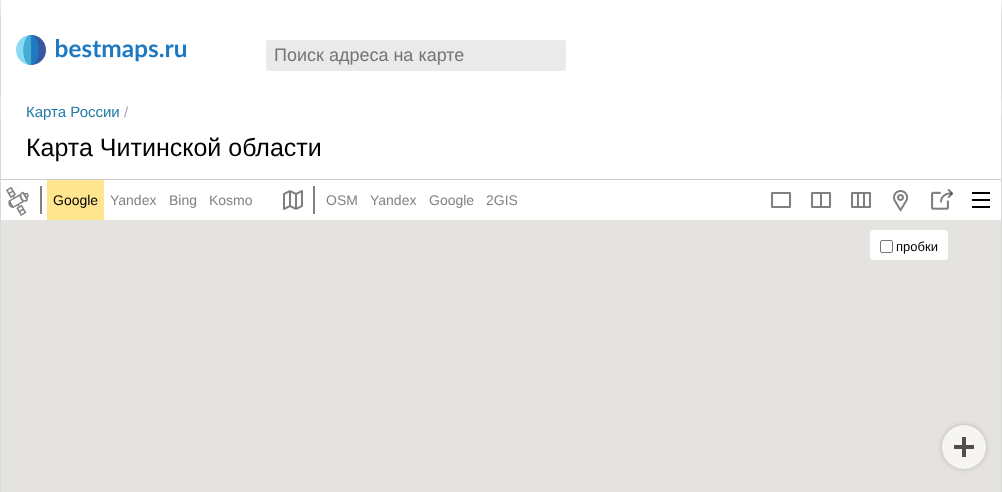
<svg xmlns="http://www.w3.org/2000/svg" width="1002" height="492">
<style>
.a{font:18px Liberation Sans;fill:#757575}
.b{font:15px Liberation Sans;fill:#227aa7}
.c{font:15px Liberation Sans;fill:#aaa}
.d{font:25px Liberation Sans;fill:#000}
.e{font:14px Liberation Sans;fill:#000}
.f{font:14px Liberation Sans;fill:#828282}
.g{font:13px Liberation Sans;fill:#000}
</style>
<rect width="100%" height="100%" fill="#efefef"/>
<path fill="#00000033" filter="blur(7.5px)" d="M1 10h1000v91H1z"/>
<path fill="#fff" d="M1 0h1000v91H1z"/>
<image href="1.png" x="16" y="35" width="30" height="30"/>
<image href="2.png" x="56" y="39" width="130" height="23"/>
<rect fill="#eaeaea" x="266" y="40" width="300" height="31" rx="3"/>
<path fill="#00000033" filter="blur(7.5px)" d="M1 111h1000v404H1z"/>
<path fill="#fff" d="M1 91h1000v129H1z"/>
<path fill="#ccc" d="M1 179h1000v1H1z"/>
<image href="3.png" x="6" y="186" width="23" height="30"/>
<path fill="#828282" d="M40 186h2v28H40z"/>
<path fill="#ffe68e" d="M47 180h57v40H47z"/>
<image href="4.png" x="283" y="190" width="20" height="20"/>
<path fill="#828282" d="M313 186h2v28H313z"/>
<path fill="none" stroke="#808080" stroke-width="2" stroke-linejoin="round" d="M772 207v-14h18v14zm49 0h-9v-14h9m0 14h9v-14h-9m0 14v-14"/>
<image href="5.png" x="851" y="192" width="20" height="16"/>
<image href="6.png" x="893" y="190" width="16" height="22"/>
<image href="7.png" x="931" y="189" width="23" height="21"/>
<path fill="#000" d="M972 199h18v2H972z"/>
<path fill="#000" d="M972 192h18v2H972z"/>
<path fill="#000" d="M972 206h18v2H972z"/>
<path fill="#e5e3df" d="M1 220h1000v272H1z"/>
<rect fill="#fff" x="870" y="230" width="78" height="30" rx="3"/>
<rect fill="none" stroke="#767676" x="880.5" y="240.5" width="12" height="12" rx="1.5"/>
<rect fill="#504f4e4d" filter="blur(2.5px)" x="942" y="425" width="44" height="44" rx="22"/>
<circle fill="#f6f5f4" cx="964" cy="447" r="22"/>
<path fill="#504f4e" d="M954 445h20v4H954z"/>
<path fill="#504f4e" d="M962 437h4v20H962z"/>
<text class="a" x="274" y="61">Поиск адреса на карте</text>
<text class="b" x="26" y="117">Карта России</text>
<text class="c" x="124" y="117">/</text>
<text class="d" x="26" y="156">Карта Читинской области</text>
<text class="e" x="53" y="205">Google</text>
<text class="f" x="110" y="205">Yandex</text>
<text class="f" x="169" y="205">Bing</text>
<text class="f" x="209" y="205">Kosmo</text>
<text class="f" x="326" y="205">OSM</text>
<text class="f" x="370" y="205">Yandex</text>
<text class="f" x="429" y="205">Google</text>
<text class="f" x="486" y="205">2GIS</text>
<text class="g" x="896" y="251">пробки</text>
</svg>
